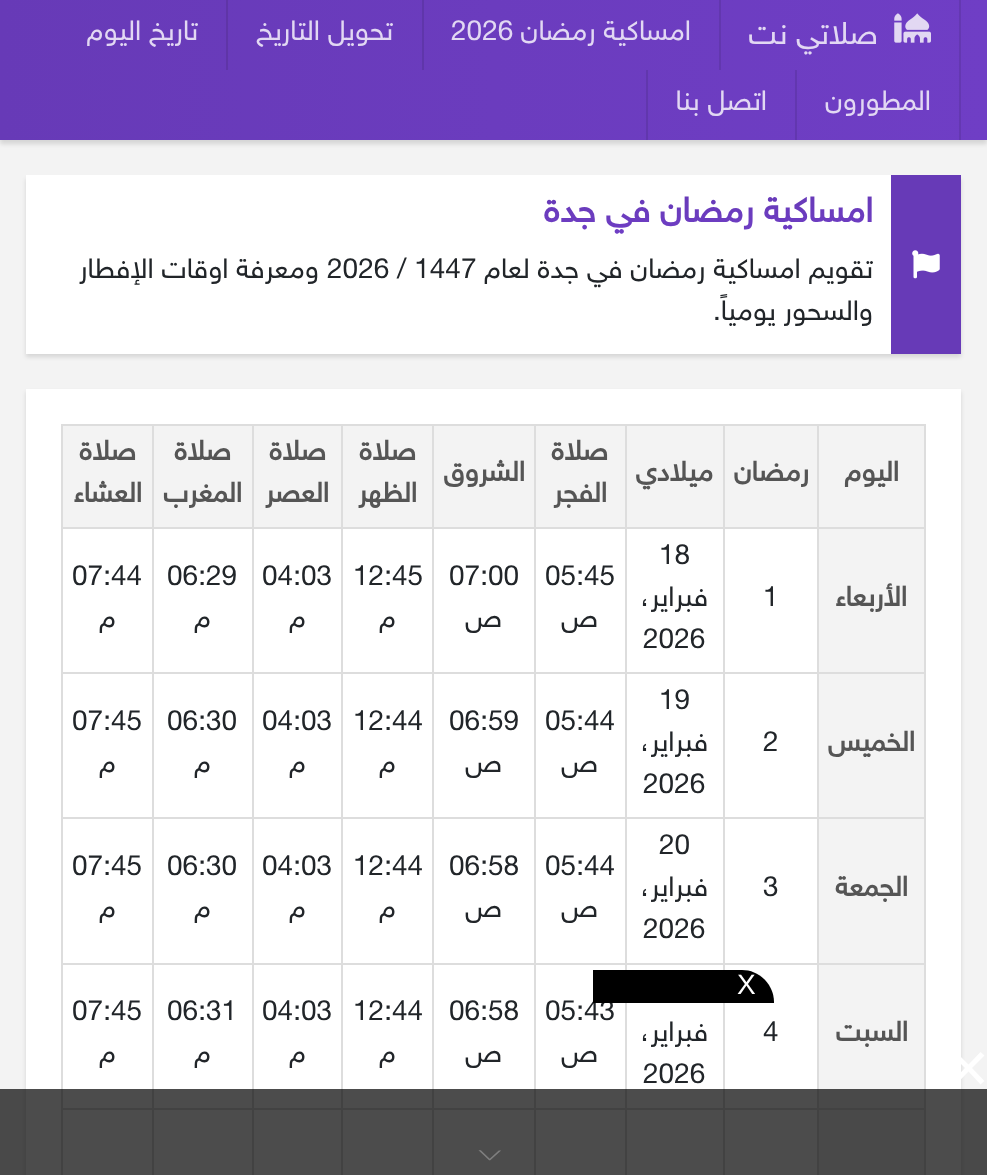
<svg xmlns="http://www.w3.org/2000/svg" width="987" height="1175">
<style>
.a{font:31.5px 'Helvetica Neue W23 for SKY';direction:rtl;fill:#e2d8f3}
.b{font:28px 'Helvetica Neue W23 for SKY';direction:rtl;fill:#e2d8f3}
.c{font:28px 'Helvetica Neue W23 for SKY';fill:#e2d8f3}
.d{font:bold 35px 'Helvetica Neue W23 for SKY';direction:rtl;fill:url(#g1)}
.e{font:28px 'Helvetica Neue W23 for SKY';direction:rtl;fill:#212529}
.f{font:28px 'Helvetica Neue W23 for SKY';fill:#212529}
.g{font:bold 28px 'Helvetica Neue W23 for SKY';direction:rtl;fill:#555}
.h{font:28px Liberation Sans;fill:#fff}
</style>
<defs>
<linearGradient id="g1" gradientUnits="userSpaceOnUse" x1="459" y1="192" x2="459" y2="235"><stop offset="0" stop-color="#673ab7"/><stop offset="1" stop-color="#6f3ec5"/></linearGradient>
<linearGradient id="g2" gradientUnits="userSpaceOnUse" x1="0" y1="70" x2="987" y2="70"><stop offset="0" stop-color="#673ab7"/><stop offset="1" stop-color="#6f3ec5"/></linearGradient>
</defs>
<rect width="100%" height="100%" fill="#f3f3f3"/>
<path fill="#0000001f" filter="blur(2px)" d="M0 4h987v140H0z"/>
<path fill="url(#g2)" d="M0 0h987v140H0z"/>
<path fill="#6438b1" d="M959 0h2v140H959z"/>
<image href="1.png" x="894" y="13" width="37" height="30"/>
<path fill="#6237ae" d="M719 0h2v70H719z"/>
<path fill="#5f36aa" d="M422 0h2v70H422z"/>
<path fill="#5f35a7" d="M226 0h2v70H226z"/>
<path fill="#6237af" d="M795 70h2v70H795z"/>
<path fill="#6137ad" d="M646 70h2v70H646z"/>
<path fill="#0000001f" filter="blur(2px)" d="M26 179h935v178H26z"/>
<path fill="#fff" d="M26 175h865v179H26z"/>
<path fill="#673ab7" d="M891 175h70v179H891z"/>
<image href="2.png" x="912" y="250" width="28" height="29"/>
<path fill="#0000001f" filter="blur(2px)" d="M26 392h935v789H26z"/>
<path fill="#fff" d="M26 389h935v786H26z"/>
<path fill="#ddd" d="M61 424h865v2H61z"/>
<path fill="#ddd" d="M924 424h2v751H924z"/>
<path fill="#ddd" d="M61 424h2v751H61z"/>
<path fill="#f3f3f3" d="M819 426h105v101H819z"/>
<path fill="#ddd" d="M61 1108h758v2H61z"/>
<path fill="#ddd" d="M817 1108h2v67H817z"/>
<path fill="#ddd" d="M817 1108h109v2H817z"/>
<path fill="#ddd" d="M61 963h758v2H61z"/>
<path fill="#ddd" d="M817 963h2v147H817z"/>
<path fill="#ddd" d="M817 963h109v2H817z"/>
<path fill="#ddd" d="M61 817h758v2H61z"/>
<path fill="#ddd" d="M817 817h2v147H817z"/>
<path fill="#ddd" d="M817 817h109v2H817z"/>
<path fill="#ddd" d="M61 672h758v2H61z"/>
<path fill="#ddd" d="M817 672h2v147H817z"/>
<path fill="#ddd" d="M817 672h109v2H817z"/>
<path fill="#ddd" d="M61 527h758v2H61z"/>
<path fill="#ddd" d="M817 527h2v147H817z"/>
<path fill="#ddd" d="M817 527h109v2H817z"/>
<path fill="#ddd" d="M817 424h2v105H817z"/>
<path fill="#f3f3f3" d="M725 426h92v101H725z"/>
<path fill="#f3f3f3" d="M627 426h96v101H627z"/>
<path fill="#f3f3f3" d="M536 426h89v101H536z"/>
<path fill="#f3f3f3" d="M434 426h100v101H434z"/>
<path fill="#f3f3f3" d="M343 426h89v101H343z"/>
<path fill="#f3f3f3" d="M254 426h87v101H254z"/>
<path fill="#f3f3f3" d="M154 426h98v101H154z"/>
<path fill="#f3f3f3" d="M63 426h89v101H63z"/>
<path fill="#f3f3f3" d="M819 529h105v143H819z"/>
<path fill="#ddd" d="M723 1108h2v67H723z"/>
<path fill="#ddd" d="M723 963h2v147H723z"/>
<path fill="#ddd" d="M723 817h2v147H723z"/>
<path fill="#ddd" d="M723 672h2v147H723z"/>
<path fill="#ddd" d="M723 424h2v250H723z"/>
<path fill="#ddd" d="M625 1108h2v67H625z"/>
<path fill="#ddd" d="M625 963h2v147H625z"/>
<path fill="#ddd" d="M625 817h2v147H625z"/>
<path fill="#ddd" d="M625 672h2v147H625z"/>
<path fill="#ddd" d="M625 424h2v250H625z"/>
<path fill="#ddd" d="M534 1108h2v67H534z"/>
<path fill="#ddd" d="M534 963h2v147H534z"/>
<path fill="#ddd" d="M534 817h2v147H534z"/>
<path fill="#ddd" d="M534 672h2v147H534z"/>
<path fill="#ddd" d="M534 424h2v250H534z"/>
<path fill="#ddd" d="M432 1108h2v67H432z"/>
<path fill="#ddd" d="M432 963h2v147H432z"/>
<path fill="#ddd" d="M432 817h2v147H432z"/>
<path fill="#ddd" d="M432 672h2v147H432z"/>
<path fill="#ddd" d="M432 424h2v250H432z"/>
<path fill="#ddd" d="M341 1108h2v67H341z"/>
<path fill="#ddd" d="M341 963h2v147H341z"/>
<path fill="#ddd" d="M341 817h2v147H341z"/>
<path fill="#ddd" d="M341 672h2v147H341z"/>
<path fill="#ddd" d="M341 424h2v250H341z"/>
<path fill="#ddd" d="M252 1108h2v67H252z"/>
<path fill="#ddd" d="M252 963h2v147H252z"/>
<path fill="#ddd" d="M252 817h2v147H252z"/>
<path fill="#ddd" d="M252 672h2v147H252z"/>
<path fill="#ddd" d="M252 424h2v250H252z"/>
<path fill="#ddd" d="M152 1108h2v67H152z"/>
<path fill="#ddd" d="M152 963h2v147H152z"/>
<path fill="#ddd" d="M152 817h2v147H152z"/>
<path fill="#ddd" d="M152 672h2v147H152z"/>
<path fill="#ddd" d="M152 424h2v250H152z"/>
<path fill="#f3f3f3" d="M819 674h105v143H819z"/>
<path fill="#f3f3f3" d="M819 819h105v144H819z"/>
<path fill="#f3f3f3" d="M819 965h105v143H819z"/>
<path fill="#f3f3f3" d="M819 1110h105v65H819z"/>
<path fill="#000000b3" d="M0 1089h987v86H0z"/>
<path fill="#fff" d="M984.5 1055.5l-4-3.5l-12 12.5l-12.5-12.5l-3.5 3.5l12.5 12.5l-12.5 13l3.5 3.5l12.5-13l12 13l4-3.5l-12.5-13z"/>
<image href="3.png" x="478" y="1150" width="23" height="11"/>
<text class="a" x="878" y="44">صلاتي نت</text>
<text class="b" x="691" y="40">امساكية رمضان</text>
<text class="c" x="451" y="40">2026</text>
<text class="b" x="393" y="40">تحويل التاريخ</text>
<text class="b" x="198" y="40">تاريخ اليوم</text>
<text class="b" x="931" y="110">المطورون</text>
<text class="b" x="767" y="110">اتصل بنا</text>
<text class="d" x="873" y="222">امساكية رمضان في جدة</text>
<text class="e" x="873" y="278">تقويم امساكية رمضان في جدة لعام</text>
<text class="f" x="327" y="278">2026 / 1447</text>
<text class="e" x="319" y="278">ومعرفة اوقات الإفطار</text>
<text class="e" x="873" y="320">والسحور يومياً.</text>
<text class="g" x="899" y="481">اليوم</text>
<text class="g" x="809" y="481">رمضان</text>
<text class="g" x="713" y="481">ميلادي</text>
<text class="g" x="608" y="460">صلاة</text>
<text class="g" x="607" y="502">الفجر</text>
<text class="g" x="525" y="481">الشروق</text>
<text class="g" x="416" y="460">صلاة</text>
<text class="g" x="417" y="502">الظهر</text>
<text class="g" x="326" y="460">صلاة</text>
<text class="g" x="329" y="502">العصر</text>
<text class="g" x="231" y="460">صلاة</text>
<text class="g" x="242" y="502">المغرب</text>
<text class="g" x="136" y="460">صلاة</text>
<text class="g" x="142" y="502">العشاء</text>
<text class="g" x="907" y="606">الأربعاء</text>
<text class="f" x="763" y="606">1</text>
<text class="f" x="659" y="564">18</text>
<text class="e" x="708" y="606">فبراير،</text>
<text class="f" x="643" y="648">2026</text>
<text class="f" x="545" y="585">05:45</text>
<text class="e" x="598" y="627">ص</text>
<text class="f" x="449" y="585">07:00</text>
<text class="e" x="502" y="627">ص</text>
<text class="f" x="353" y="585">12:45</text>
<text class="e" x="396" y="627">م</text>
<text class="f" x="262" y="585">04:03</text>
<text class="e" x="306" y="627">م</text>
<text class="f" x="167" y="585">06:29</text>
<text class="e" x="211" y="627">م</text>
<text class="f" x="72" y="585">07:44</text>
<text class="e" x="116" y="627">م</text>
<text class="g" x="915" y="751">الخميس</text>
<text class="f" x="763" y="751">2</text>
<text class="f" x="659" y="709">19</text>
<text class="e" x="708" y="751">فبراير،</text>
<text class="f" x="643" y="793">2026</text>
<text class="f" x="545" y="730">05:44</text>
<text class="e" x="598" y="772">ص</text>
<text class="f" x="449" y="730">06:59</text>
<text class="e" x="502" y="772">ص</text>
<text class="f" x="353" y="730">12:44</text>
<text class="e" x="396" y="772">م</text>
<text class="f" x="262" y="730">04:03</text>
<text class="e" x="306" y="772">م</text>
<text class="f" x="167" y="730">06:30</text>
<text class="e" x="211" y="772">م</text>
<text class="f" x="72" y="730">07:45</text>
<text class="e" x="116" y="772">م</text>
<text class="g" x="908" y="896">الجمعة</text>
<text class="f" x="763" y="896">3</text>
<text class="f" x="659" y="854">20</text>
<text class="e" x="708" y="896">فبراير،</text>
<text class="f" x="643" y="938">2026</text>
<text class="f" x="545" y="875">05:44</text>
<text class="e" x="598" y="917">ص</text>
<text class="f" x="449" y="875">06:58</text>
<text class="e" x="502" y="917">ص</text>
<text class="f" x="353" y="875">12:44</text>
<text class="e" x="396" y="917">م</text>
<text class="f" x="262" y="875">04:03</text>
<text class="e" x="306" y="917">م</text>
<text class="f" x="167" y="875">06:30</text>
<text class="e" x="211" y="917">م</text>
<text class="f" x="72" y="875">07:45</text>
<text class="e" x="116" y="917">م</text>
<text class="g" x="908" y="1041">السبت</text>
<text class="f" x="763" y="1041">4</text>
<text class="e" x="708" y="1041">فبراير،</text>
<text class="f" x="643" y="1083">2026</text>
<text class="f" x="545" y="1020">05:43</text>
<text class="e" x="598" y="1062">ص</text>
<text class="f" x="449" y="1020">06:58</text>
<text class="e" x="502" y="1062">ص</text>
<text class="f" x="353" y="1020">12:44</text>
<text class="e" x="396" y="1062">م</text>
<text class="f" x="262" y="1020">04:03</text>
<text class="e" x="306" y="1062">م</text>
<text class="f" x="167" y="1020">06:31</text>
<text class="e" x="211" y="1062">م</text>
<text class="f" x="72" y="1020">07:45</text>
<text class="e" x="116" y="1062">م</text>
<path fill="#000" d="M593 970h149c17.5 0 32 14.5 32 32v1h-181z"/>
<text class="h" x="737" y="994">X</text>
</svg>
